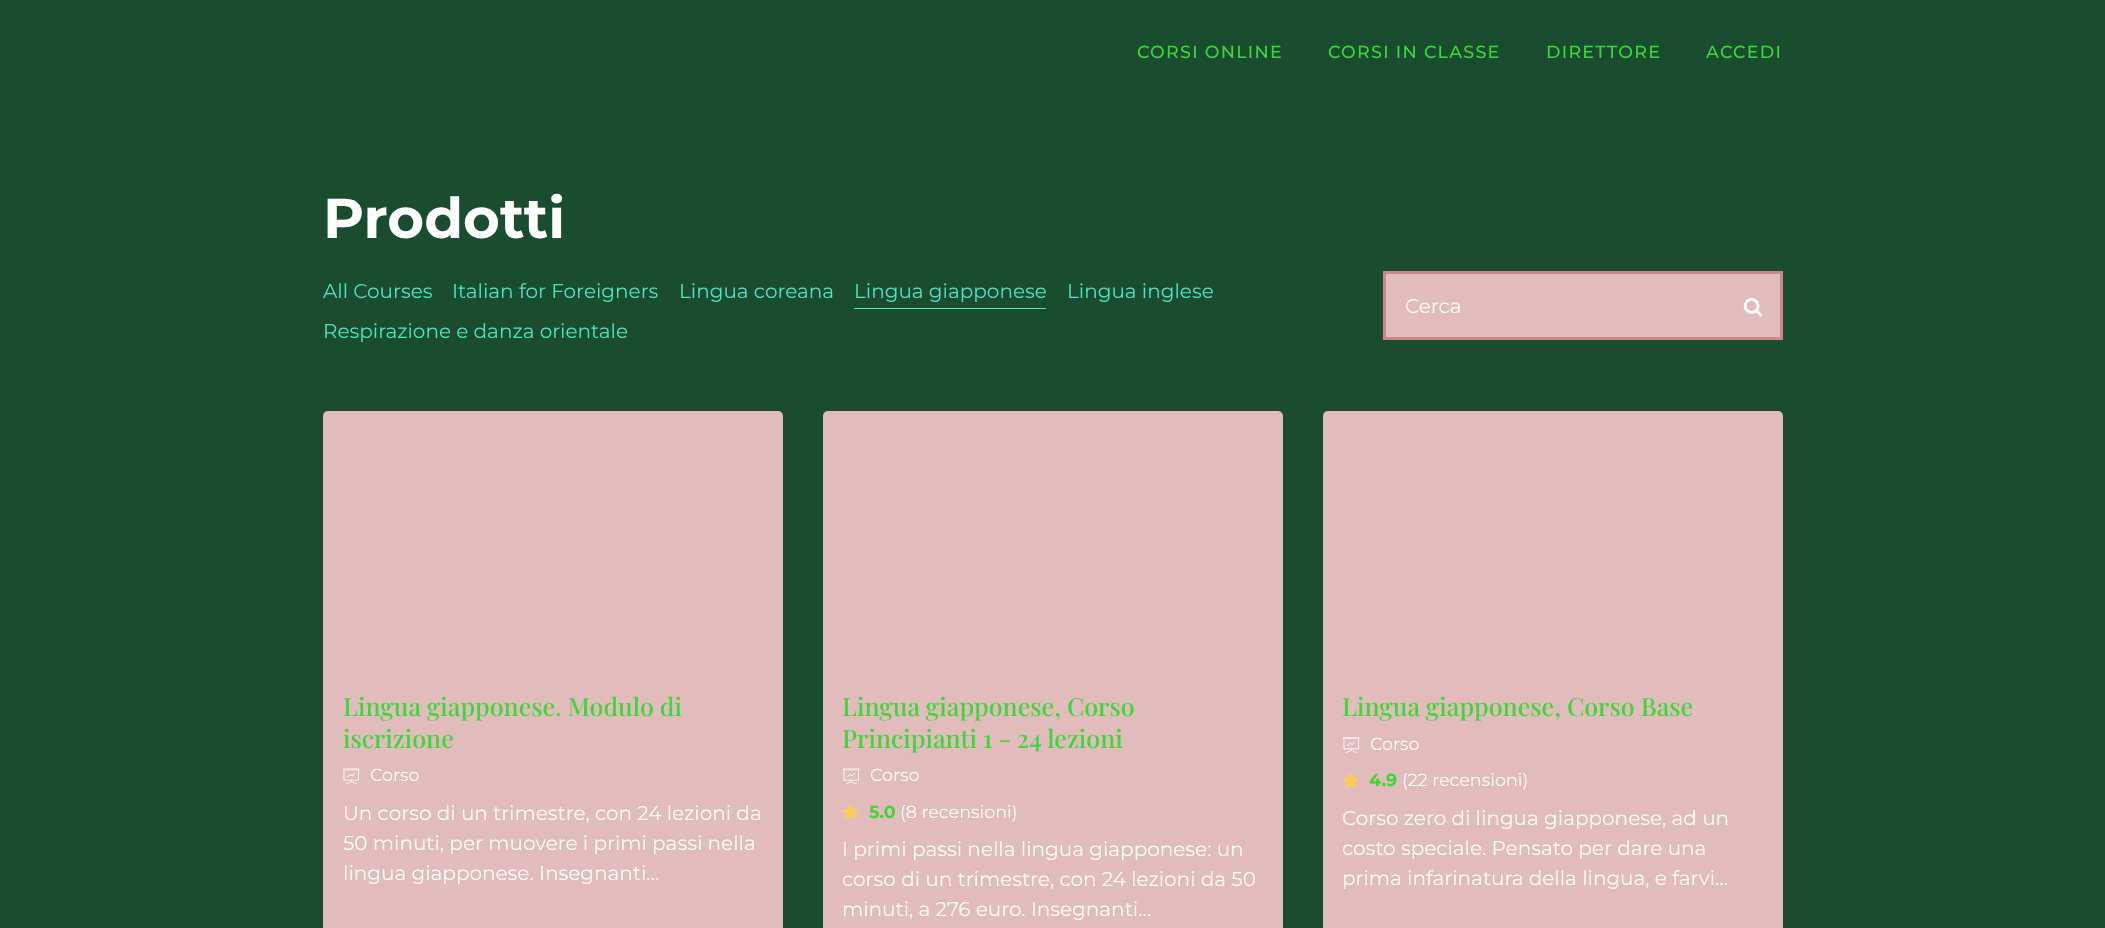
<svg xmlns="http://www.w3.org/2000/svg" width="2105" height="928">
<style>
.a{font:500 17.5px Montserrat;letter-spacing:1.25px;fill:#3cd738}
.b{font:bold 56.25px Montserrat;fill:#fff}
.c{font:20px Montserrat;fill:#50e3c2}
.d{font:20px Montserrat;fill:#fff}
.e{font:500 25px Playfair Display;fill:#3cd738}
.f{font:17.5px Montserrat;fill:#fff}
.g{font:bold 17.5px Montserrat;fill:#3cd738}
</style>
<rect width="100%" height="100%" fill="#1a4c2f"/>
<path fill="#50e3c2" d="M854 308h192v1H854z"/>
<path fill="#e2bcbc" stroke="#cb8787" stroke-width="3" d="M1384.5 272.5h397v66H1384.5z"/>
<image href="1.png" x="1743" y="298" width="20" height="19"/>
<rect fill="#00000026" filter="blur(1px)" x="323" y="413" width="460" height="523" rx="5"/>
<rect fill="#e2bcbc" x="323" y="411" width="460" height="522" rx="5"/>
<image href="2.png" x="342" y="768" width="18" height="17"/>
<rect fill="#00000026" filter="blur(1px)" x="823" y="413" width="460" height="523" rx="5"/>
<rect fill="#e2bcbc" x="823" y="411" width="460" height="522" rx="5"/>
<image href="2.png" x="842" y="768" width="18" height="17"/>
<image href="3.png" x="842" y="804" width="17" height="16"/>
<rect fill="#00000026" filter="blur(1px)" x="1323" y="413" width="460" height="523" rx="5"/>
<rect fill="#e2bcbc" x="1323" y="411" width="460" height="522" rx="5"/>
<image href="4.png" x="1342" y="737" width="18" height="16"/>
<image href="5.png" x="1342" y="772" width="17" height="17"/>
<text class="a" x="1137" y="58">CORSI ONLINE</text>
<text class="a" x="1328" y="58">CORSI IN CLASSE</text>
<text class="a" x="1546" y="58">DIRETTORE</text>
<text class="a" x="1706" y="58">ACCEDI</text>
<text class="b" x="323" y="238">Prodotti</text>
<text class="c" x="323" y="298">All Courses</text>
<text class="c" x="452" y="298">Italian for Foreigners</text>
<text class="c" x="679" y="298">Lingua coreana</text>
<text class="c" x="854" y="298">Lingua giapponese</text>
<text class="c" x="1067" y="298">Lingua inglese</text>
<text class="c" x="323" y="338">Respirazione e danza orientale</text>
<text class="d" x="1405" y="313">Cerca</text>
<text class="e" x="343" y="716">Lingua giapponese. Modulo di</text>
<text class="e" x="343" y="748">iscrizione</text>
<text class="f" x="370" y="781">Corso</text>
<text class="d" x="343" y="820">Un corso di un trimestre, con 24 lezioni da</text>
<text class="d" x="343" y="850">50 minuti, per muovere i primi passi nella</text>
<text class="d" x="343" y="880">lingua giapponese. Insegnanti…</text>
<text class="e" x="842" y="716">Lingua giapponese, Corso</text>
<text class="e" x="842" y="748">Principianti 1 - 24 lezioni</text>
<text class="f" x="870" y="781">Corso</text>
<text class="g" x="869" y="818">5.0</text>
<text class="f" x="900" y="818">(8 recensioni)</text>
<text class="d" x="842" y="856">I primi passi nella lingua giapponese: un</text>
<text class="d" x="842" y="886">corso di un trimestre, con 24 lezioni da 50</text>
<text class="d" x="842" y="916">minuti, a 276 euro. Insegnanti…</text>
<text class="e" x="1342" y="716">Lingua giapponese, Corso Base</text>
<text class="f" x="1370" y="750">Corso</text>
<text class="g" x="1369" y="786">4.9</text>
<text class="f" x="1402" y="786">(22 recensioni)</text>
<text class="d" x="1342" y="825">Corso zero di lingua giapponese, ad un</text>
<text class="d" x="1342" y="855">costo speciale. Pensato per dare una</text>
<text class="d" x="1342" y="885">prima infarinatura della lingua, e farvi…</text>
</svg>
